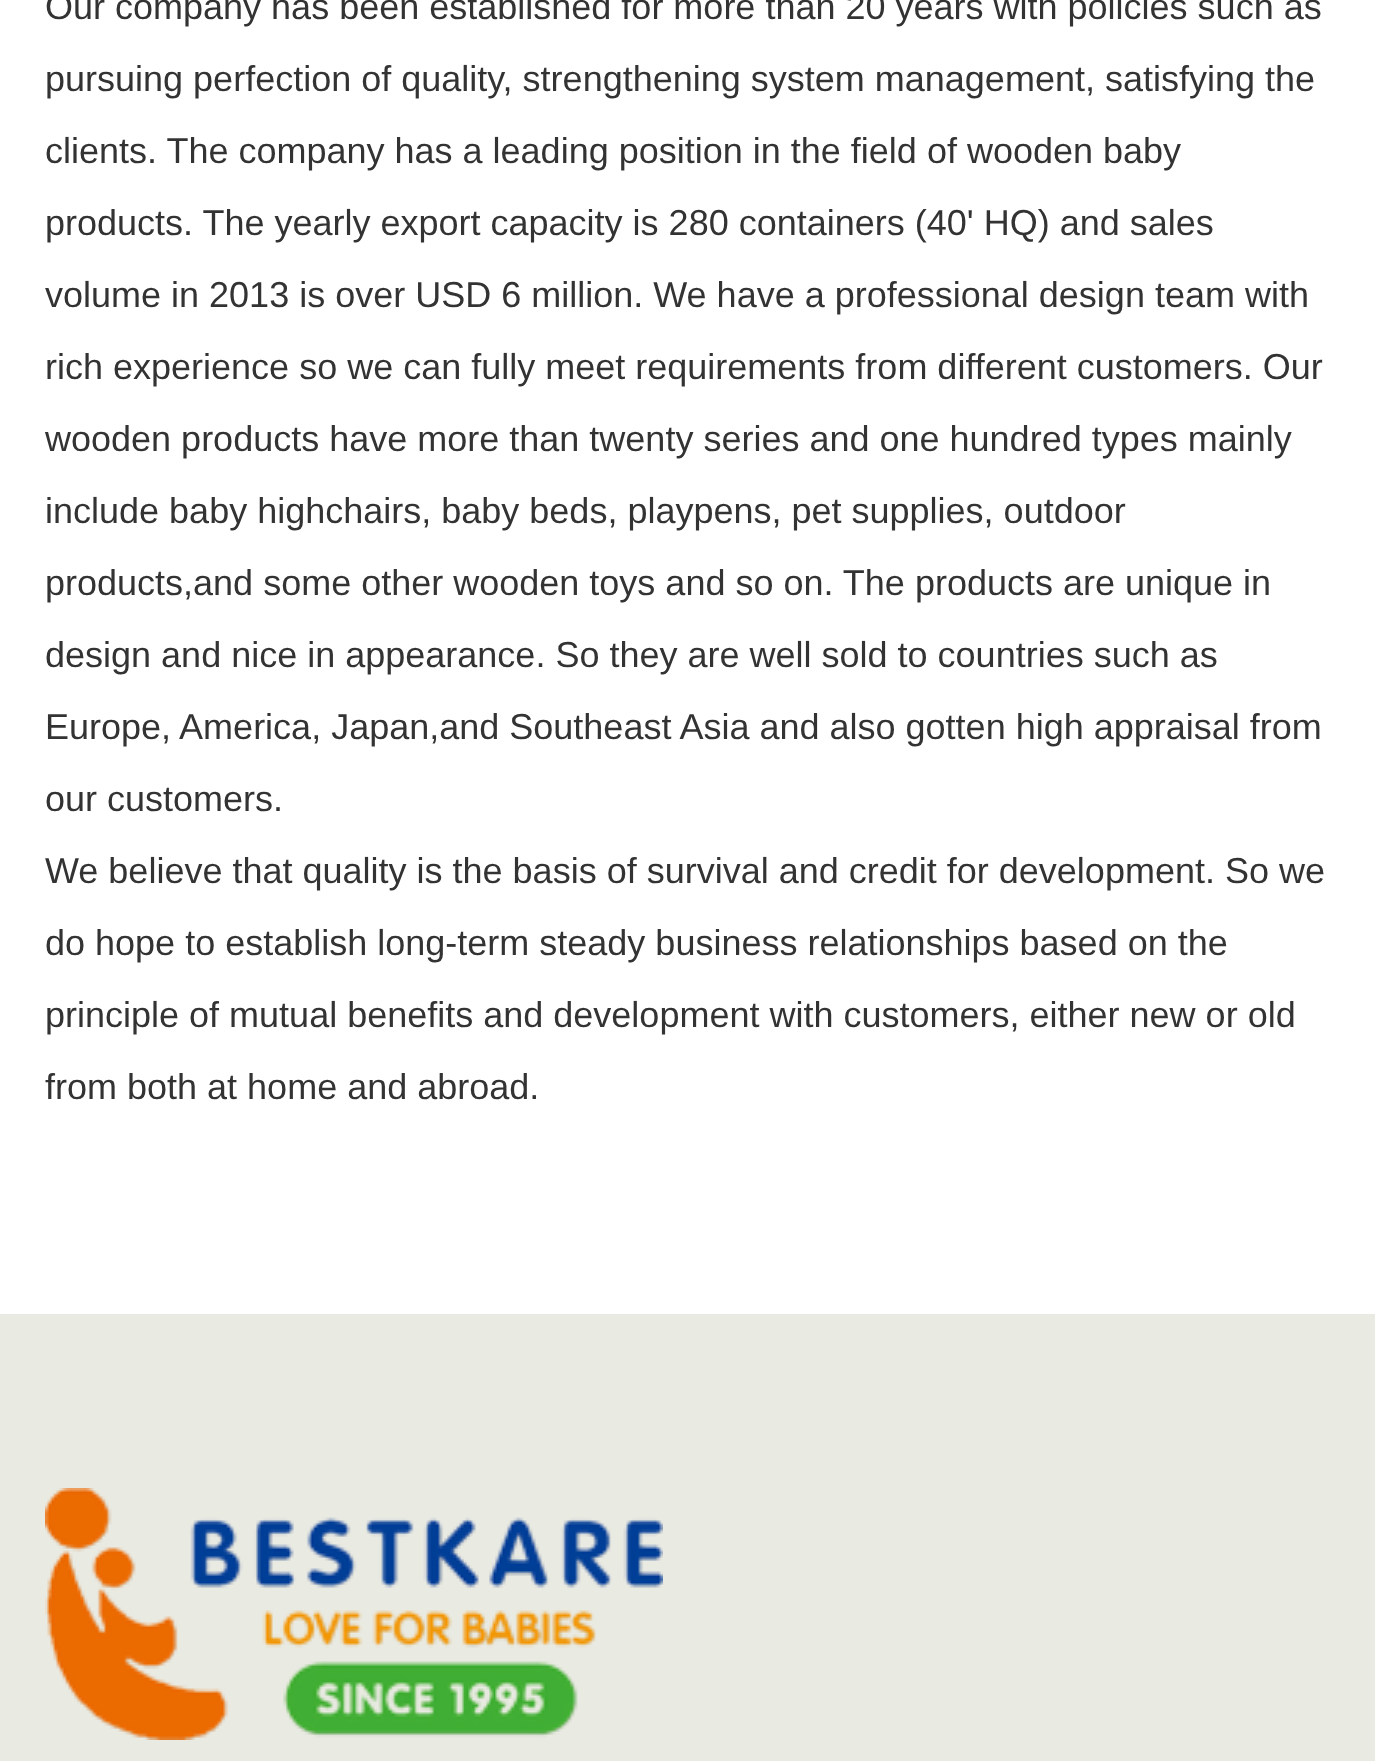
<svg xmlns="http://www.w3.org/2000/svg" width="1375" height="1761">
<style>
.a{font:36px Liberation Sans;fill:#333}
</style>
<rect width="100%" height="100%" fill="#fff"/>
<path fill="#e9eae2" d="M0 1314h1375v447H0z"/>
<image href="1.png" x="45" y="1488" width="618" height="252"/>
<text class="a" x="45" y="19">Our company has been established for more than 20 years with policies such as</text>
<text class="a" x="45" y="91">pursuing perfection of quality, strengthening system management, satisfying the</text>
<text class="a" x="45" y="163">clients. The company has a leading position in the field of wooden baby</text>
<text class="a" x="45" y="235">products. The yearly export capacity is 280 containers (40' HQ) and sales</text>
<text class="a" x="45" y="307">volume in 2013 is over USD 6 million. We have a professional design team with</text>
<text class="a" x="45" y="379">rich experience so we can fully meet requirements from different customers. Our</text>
<text class="a" x="45" y="451">wooden products have more than twenty series and one hundred types mainly</text>
<text class="a" x="45" y="523">include baby highchairs, baby beds, playpens, pet supplies, outdoor</text>
<text class="a" x="45" y="595">products,and some other wooden toys and so on. The products are unique in</text>
<text class="a" x="45" y="667">design and nice in appearance. So they are well sold to countries such as</text>
<text class="a" x="45" y="739">Europe, America, Japan,and Southeast Asia and also gotten high appraisal from</text>
<text class="a" x="45" y="811">our customers.</text>
<text class="a" x="45" y="883">We believe that quality is the basis of survival and credit for development. So we</text>
<text class="a" x="45" y="955">do hope to establish long-term steady business relationships based on the</text>
<text class="a" x="45" y="1027">principle of mutual benefits and development with customers, either new or old</text>
<text class="a" x="45" y="1099">from both at home and abroad.</text>
</svg>
